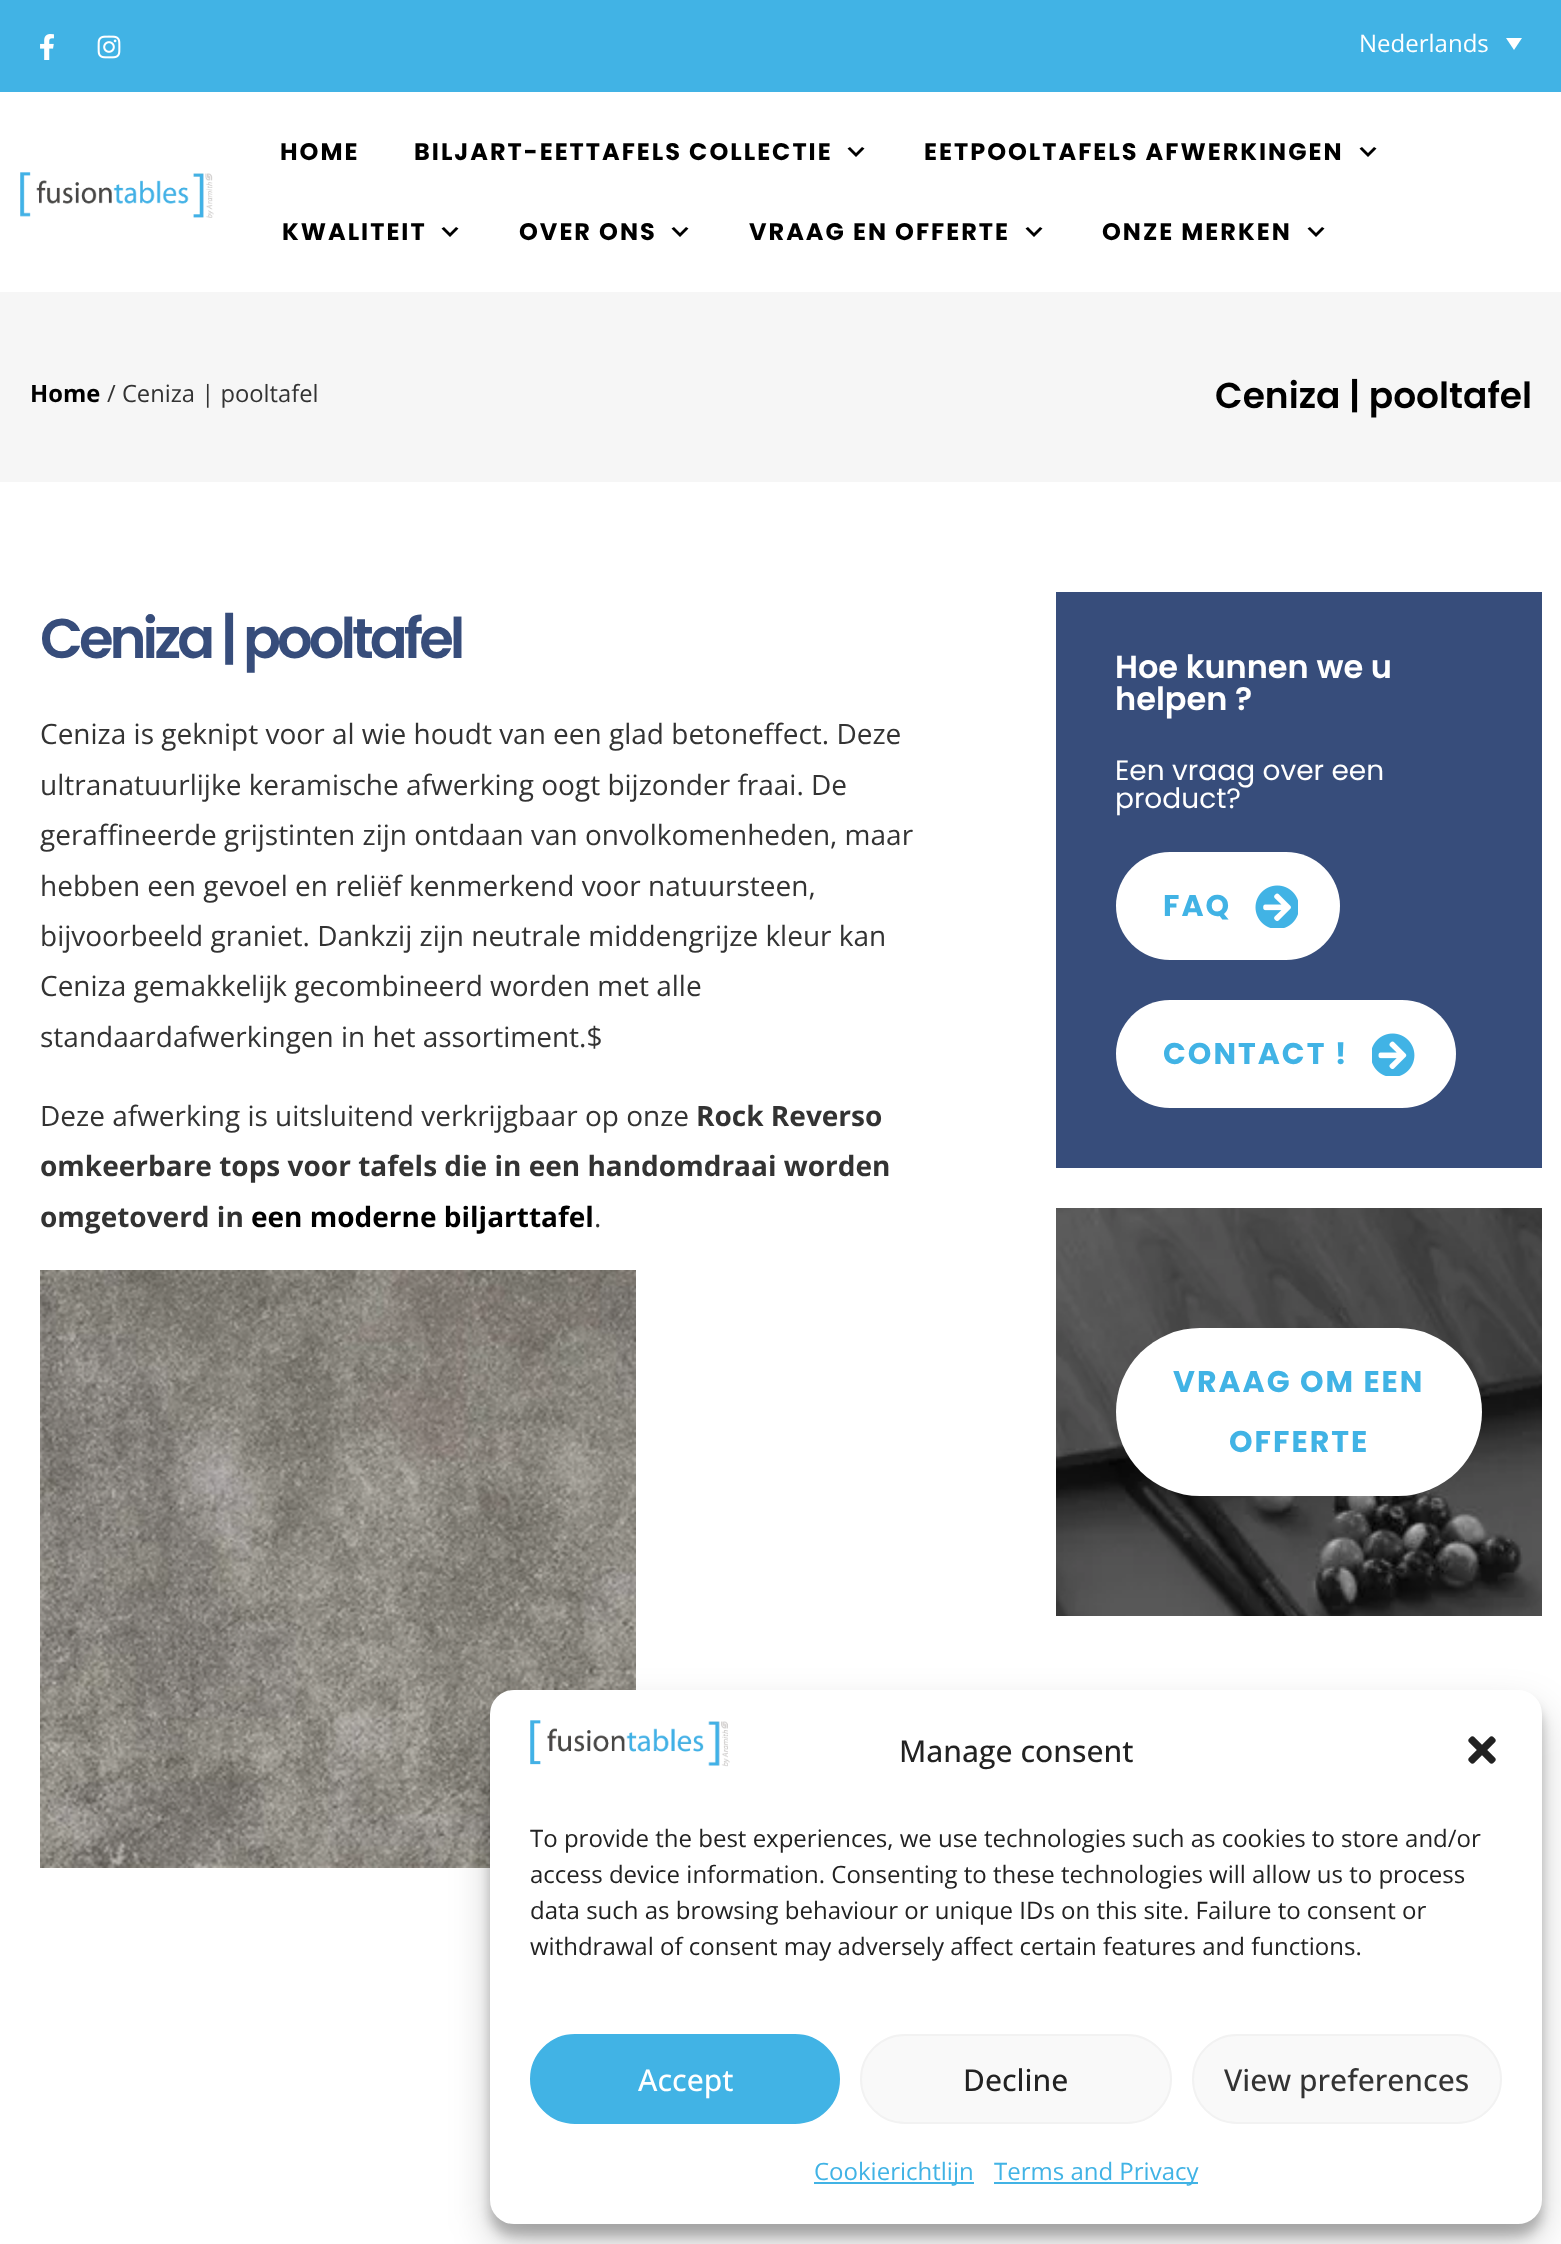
<svg xmlns="http://www.w3.org/2000/svg" width="1561" height="2244">
<style>
.a{font:24px Open Sans;fill:#fff}
.b{font:bold 24px Poppins;letter-spacing:2px;fill:#000}
.c{font:bold 23.75px Open Sans;fill:#000}
.d{font:23.75px Open Sans;fill:#333}
.e{font:600 36px Poppins;fill:#000}
.f{font:600 56px Poppins;letter-spacing:-4px;fill:#374d7b}
.g{font:28px Open Sans;fill:#333}
.h{font:bold 28px Open Sans;fill:#333}
.i{font:bold 28px Open Sans;fill:#000}
.j{font:600 32px Poppins;fill:#fff}
.k{font:28px Poppins;fill:#fff}
.l{font:bold 30px Poppins;letter-spacing:2px;fill:#41b3e5}
.m{font:500 30px Open Sans;fill:#222}
.n{font:24px Open Sans;fill:#222}
.o{font:500 30px Open Sans;fill:#fff}
.p{font:500 30px Open Sans;fill:#333}
.q{font:24px Open Sans;fill:#41b3e5}
</style>
<rect width="100%" height="100%" fill="#fff"/>
<path fill="#41b3e5" d="M0 0h1561v92H0z"/>
<image href="1.png" x="40" y="34" width="14" height="26"/>
<image href="2.png" x="97" y="35" width="24" height="24"/>
<path fill="#fff" d="M1506 38h16l-8 12z"/>
<image href="3.png" x="20" y="172" width="194" height="46"/>
<path fill="#000" d="M850 147l6 6l6-6l2.5 1.5l-8.5 8.5l-8.5-8.5z"/>
<path fill="#000" d="M1362 147l6 6l6-6l2.5 1.5l-8.5 8.5l-8.5-8.5z"/>
<path fill="#000" d="M444 227l6 6l6-6l2.5 1.5l-8.5 8.5l-8.5-8.5z"/>
<path fill="#000" d="M674 227l6 6l6-6l2.5 1.5l-8.5 8.5l-8.5-8.5z"/>
<path fill="#000" d="M1028 227l6 6l6-6l2.5 1.5l-8.5 8.5l-8.5-8.5z"/>
<path fill="#000" d="M1310 227l6 6l6-6l2.5 1.5l-8.5 8.5l-8.5-8.5z"/>
<path fill="#f6f6f6" d="M0 292h1561v190H0z"/>
<image href="4.png" x="40" y="1270" width="596" height="598"/>
<path fill="#374d7b" d="M1056 592h486v576H1056z"/>
<rect fill="#fff" x="1116" y="852" width="224" height="108" rx="54"/>
<image href="5.png" x="1255" y="885" width="43" height="43"/>
<rect fill="#fff" x="1116" y="1000" width="340" height="108" rx="54"/>
<image href="6.png" x="1372" y="1033" width="43" height="43"/>
<image href="7.png" x="1056" y="1208" width="486" height="408"/>
<rect fill="#fff" x="1116" y="1328" width="366" height="168" rx="84"/>
<rect fill="#0000003b" filter="blur(6px)" x="490" y="1702" width="1052" height="534" rx="24"/>
<rect fill="#00000030" filter="blur(20px)" x="490" y="1710" width="1052" height="534" rx="24"/>
<rect fill="#fff" x="490" y="1690" width="1052" height="534" rx="24"/>
<image href="8.png" x="530" y="1720" width="200" height="47"/>
<image href="9.png" x="1468" y="1736" width="28" height="28"/>
<rect fill="#41b3e5" stroke="#41b3e5" stroke-width="2" x="531" y="2035" width="308" height="88" rx="44"/>
<rect fill="#f9f9f9" stroke="#f2f2f2" stroke-width="2" x="861" y="2035" width="310" height="88" rx="44"/>
<rect fill="#f9f9f9" stroke="#f2f2f2" stroke-width="2" x="1193" y="2035" width="308" height="88" rx="44"/>
<path fill="#41b3e5" d="M814 2182h160v2H814z"/>
<path fill="#41b3e5" d="M994 2182h204v2H994z"/>
<text class="a" x="1359" y="52">Nederlands</text>
<text class="b" x="280" y="160">HOME</text>
<text class="b" x="414" y="160">BILJART-EETTAFELS COLLECTIE</text>
<text class="b" x="924" y="160">EETPOOLTAFELS AFWERKINGEN</text>
<text class="b" x="282" y="240">KWALITEIT</text>
<text class="b" x="519" y="240">OVER ONS</text>
<text class="b" x="749" y="240">VRAAG EN OFFERTE</text>
<text class="b" x="1102" y="240">ONZE MERKEN</text>
<text class="c" x="30" y="402">Home</text>
<text class="d" x="107" y="402">/ Ceniza | pooltafel</text>
<text class="e" x="1215" y="408">Ceniza | pooltafel</text>
<text class="f" x="40" y="658">Ceniza | pooltafel</text>
<text class="g" x="40" y="744">Ceniza is geknipt voor al wie houdt van een glad betoneffect. Deze</text>
<text class="g" x="40" y="795">ultranatuurlijke keramische afwerking oogt bijzonder fraai. De</text>
<text class="g" x="40" y="845">geraffineerde grijstinten zijn ontdaan van onvolkomenheden, maar</text>
<text class="g" x="40" y="896">hebben een gevoel en reliëf kenmerkend voor natuursteen,</text>
<text class="g" x="40" y="946">bijvoorbeeld graniet. Dankzij zijn neutrale middengrijze kleur kan</text>
<text class="g" x="40" y="996">Ceniza gemakkelijk gecombineerd worden met alle</text>
<text class="g" x="40" y="1047">standaardafwerkingen in het assortiment.$</text>
<text class="g" x="40" y="1126">Deze afwerking is uitsluitend verkrijgbaar op onze</text>
<text class="h" x="696" y="1126">Rock Reverso</text>
<text class="h" x="40" y="1176">omkeerbare tops voor tafels die in een handomdraai worden</text>
<text class="h" x="40" y="1227">omgetoverd in</text>
<text class="i" x="251" y="1227">een moderne biljarttafel</text>
<text class="g" x="594" y="1227">.</text>
<text class="j" x="1115" y="678">Hoe kunnen we u</text>
<text class="j" x="1115" y="710">helpen ?</text>
<text class="k" x="1115" y="780">Een vraag over een</text>
<text class="k" x="1115" y="808">product?</text>
<text class="l" x="1163" y="916">FAQ</text>
<text class="l" x="1163" y="1064">CONTACT !</text>
<text class="l" x="1173" y="1392">VRAAG OM EEN</text>
<text class="l" x="1229" y="1452">OFFERTE</text>
<text class="m" x="899" y="1762">Manage consent</text>
<text class="n" x="530" y="1847">To provide the best experiences, we use technologies such as cookies to store and/or</text>
<text class="n" x="530" y="1883">access device information. Consenting to these technologies will allow us to process</text>
<text class="n" x="530" y="1919">data such as browsing behaviour or unique IDs on this site. Failure to consent or</text>
<text class="n" x="530" y="1955">withdrawal of consent may adversely affect certain features and functions.</text>
<text class="o" x="638" y="2091">Accept</text>
<text class="m" x="963" y="2091">Decline</text>
<text class="p" x="1224" y="2091">View preferences</text>
<text class="q" x="814" y="2180">Cookierichtlijn</text>
<text class="q" x="994" y="2180">Terms and Privacy</text>
</svg>
